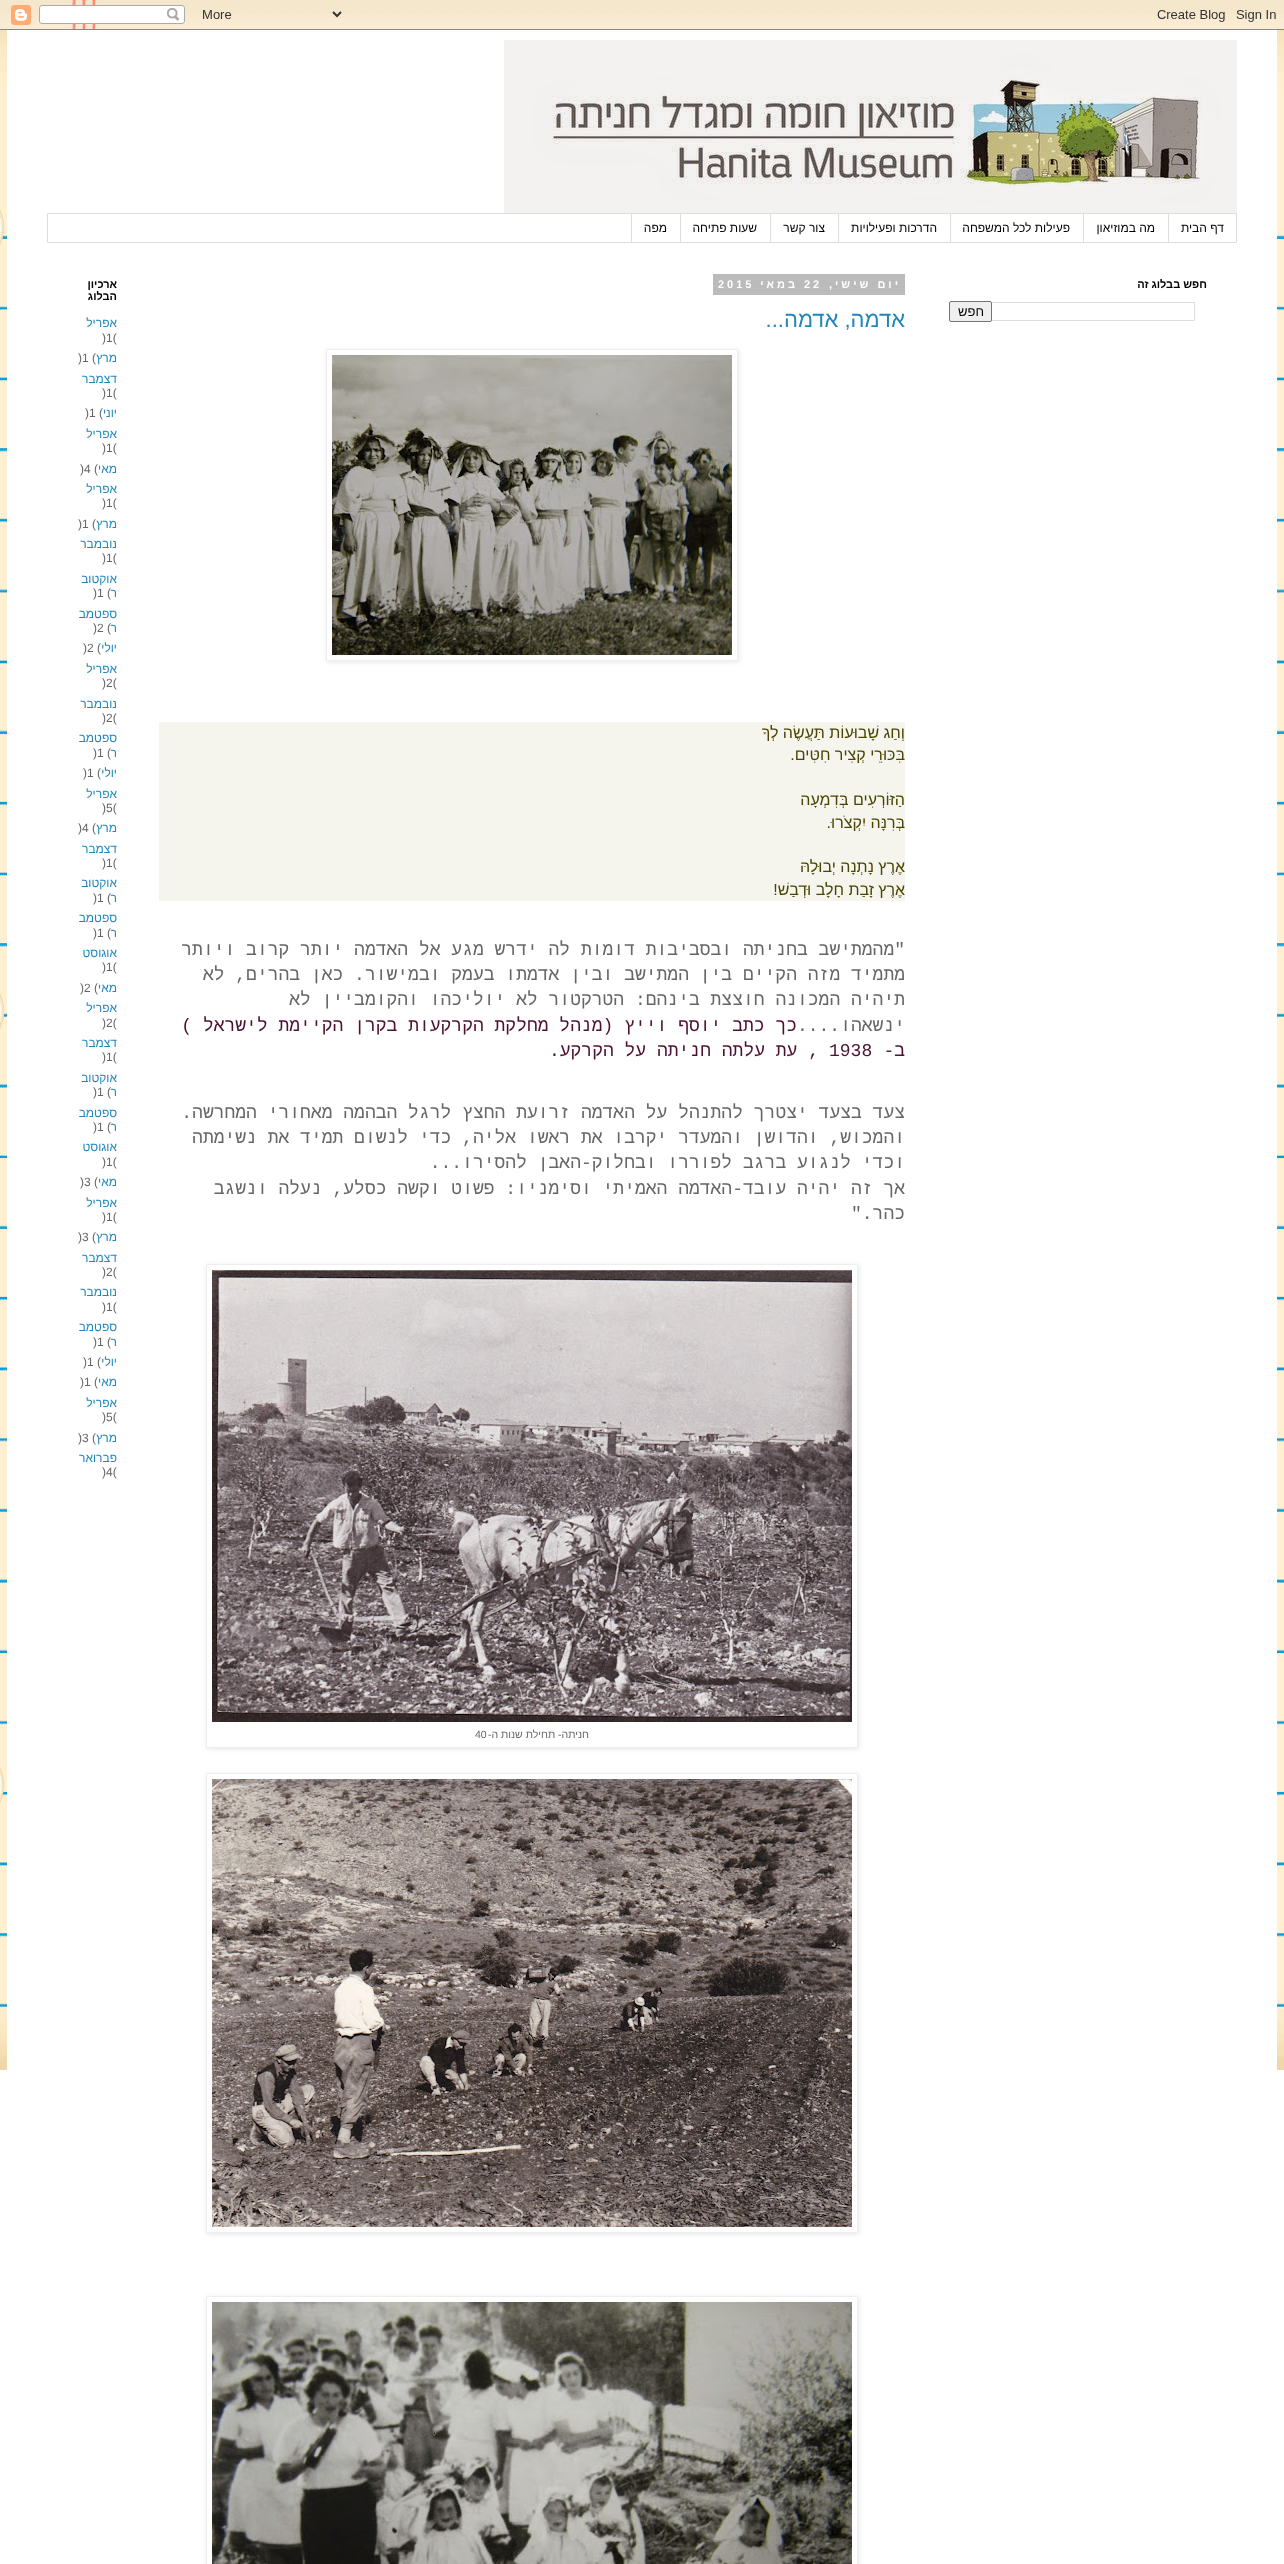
<svg xmlns="http://www.w3.org/2000/svg" width="1284" height="2564">
<style>
.a{font:12px Liberation Sans;direction:rtl;fill:#000}
.b{font:bold 11px Liberation Sans;direction:rtl;fill:#000}
.c{font:13px Liberation Sans;direction:rtl;fill:#000}
.d{font:bold 11px Liberation Sans;letter-spacing:3px;direction:rtl;fill:#fff}
.e{font:bold 11px Liberation Sans;letter-spacing:3px;fill:#fff}
.f{font:22px Liberation Sans;direction:rtl;fill:#2187bb}
.g{font:16px Liberation Sans;direction:rtl;fill:#4a4502}
.h{font:18px Liberation Mono;direction:rtl;fill:#666}
.i{font:18px Liberation Mono;direction:rtl;fill:#4c1130}
.j{font:18px Liberation Mono;fill:#4c1130}
.k{font:10.5px Liberation Sans;direction:rtl;fill:#666}
.l{font:10.5px Liberation Sans;fill:#666}
.m{font:12px Liberation Sans;direction:rtl;fill:#2187bb}
.n{font:12px Liberation Sans;fill:#666}
</style>
<defs>
<clipPath id="clip1"><path d="M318 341h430v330h-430zm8 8h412v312h-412z" clip-rule="evenodd"/></clipPath>
<clipPath id="clip2"><path d="M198 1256h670v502h-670zm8 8h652v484h-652z" clip-rule="evenodd"/></clipPath>
<clipPath id="clip3"><path d="M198 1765h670v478h-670zm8 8h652v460h-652z" clip-rule="evenodd"/></clipPath>
<clipPath id="clip4"><path d="M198 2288h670v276h-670zm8 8h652v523h-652z" clip-rule="evenodd"/></clipPath>
</defs>
<rect width="100%" height="100%" fill="#fff"/>
<image href="1.png" x="0" y="0" width="1284" height="2070"/>
<image href="2.png" x="0" y="0" width="1284" height="30"/>
<path fill="#fff" d="M7 30h1270v2040H7z"/>
<image href="3.png" x="504" y="40" width="733" height="173"/>
<path fill="none" stroke="#ddd" d="M47.5 213.5h1189v29H47.5z"/>
<path fill="#ddd" d="M1168 214h1v28H1168z"/>
<path fill="#ddd" d="M1083 214h1v28H1083z"/>
<path fill="#ddd" d="M950 214h1v28H950z"/>
<path fill="#ddd" d="M838 214h1v28H838z"/>
<path fill="#ddd" d="M770 214h1v28H770z"/>
<path fill="#ddd" d="M680 214h1v28H680z"/>
<path fill="#ddd" d="M631 214h1v28H631z"/>
<path fill="none" stroke="#ddd" d="M980.5 302.5h214v18H980.5z"/>
<rect fill="#efefef" stroke="#767676" x="949.5" y="301.5" width="42" height="20" rx="1.5"/>
<path fill="#bbb" d="M713 274h192v21H713z"/>
<g clip-path="url(#clip1)">
<path fill="#0000001a" filter="blur(2.5px)" d="M327 350h412v312H327z"/>
</g>
<path fill="none" stroke="#eee" d="M326.5 349.5h411v311H326.5z"/>
<image href="4.png" x="332" y="355" width="400" height="300"/>
<path fill="#f6f5ed" d="M159 722h746v179H159z"/>
<g clip-path="url(#clip2)">
<path fill="#0000001a" filter="blur(2.5px)" d="M207 1265h652v484H207z"/>
</g>
<path fill="none" stroke="#eee" d="M206.5 1264.5h651v483H206.5z"/>
<image href="5.png" x="212" y="1270" width="640" height="452"/>
<g clip-path="url(#clip3)">
<path fill="#0000001a" filter="blur(2.5px)" d="M207 1774h652v460H207z"/>
</g>
<path fill="none" stroke="#eee" d="M206.5 1773.5h651v459H206.5z"/>
<image href="6.png" x="212" y="1779" width="640" height="448"/>
<g clip-path="url(#clip4)">
<path fill="#0000001a" filter="blur(2.5px)" d="M207 2297h652v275H207z"/>
</g>
<path fill="none" stroke="#eee" d="M206.5 2296.5h651v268H206.5z"/>
<image href="7.png" x="212" y="2302" width="640" height="262"/>
<text class="a" x="1224" y="232">דף הבית</text>
<text class="a" x="1155" y="232">מה במוזיאון</text>
<text class="a" x="1070" y="232">פעילות לכל המשפחה</text>
<text class="a" x="937" y="232">הדרכות ופעילויות</text>
<text class="a" x="825" y="232">צור קשר</text>
<text class="a" x="757" y="232">שעות פתיחה</text>
<text class="a" x="667" y="232">מפה</text>
<text class="b" x="1207" y="288">חפש בבלוג זה</text>
<text class="c" x="984" y="316">חפש</text>
<text class="d" x="901" y="288">יום שישי,</text>
<text class="e" x="804" y="288">22</text>
<text class="d" x="798" y="288">במאי</text>
<text class="e" x="718" y="288">2015</text>
<text class="f" x="905" y="327">אדמה, אדמה...</text>
<text class="g" x="905" y="738">וְחַג שָׁבוּעוֹת תַּעֲשֶׂה לְךָ</text>
<text class="g" x="905" y="760">בִּכּוּרֵי קְצִיר חִטִּים.</text>
<text class="g" x="905" y="805">הַזּוֹרְעִים בְּדִמְעָה</text>
<text class="g" x="905" y="828">בְּרִנָּה יִקְצֹרוּ.</text>
<text class="g" x="905" y="872">אֶרֶץ נָתְנָה יְבוּלָהּ</text>
<text class="g" x="905" y="895">אֶרֶץ זָבַת חָלָב וּדְבַשׁ!</text>
<text class="h" x="905" y="955">"מהמתישב בחניתה ובסביבות דומות לה ידרש מגע אל האדמה יותר קרוב ויותר</text>
<text class="h" x="905" y="980">מתמיד מזה הקיים בין המתישב ובין אדמתו בעמק ובמישור. כאן בהרים, לא</text>
<text class="h" x="905" y="1005">תיהיה המכונה חוצצת בינהם: הטרקטור לא יוליכהו והקומביין לא</text>
<text class="h" x="905" y="1031">ינשאהו....</text>
<text class="i" x="797" y="1031">כך כתב יוסף וייץ (מנהל מחלקת הקרקעות בקרן הקיימת לישראל )</text>
<text class="i" x="905" y="1056">ב-</text>
<text class="j" x="829" y="1056">1938</text>
<text class="i" x="819" y="1056">, עת עלתה חניתה על הקרקע.</text>
<text class="h" x="905" y="1118">צעד בצעד יצטרך להתנהל על האדמה זרועת החצץ לרגל הבהמה מאחורי המחרשה.</text>
<text class="h" x="905" y="1143">והמכוש, והדושן והמעדר יקרבו את ראשו אליה, כדי לנשום תמיד את נשימתה</text>
<text class="h" x="905" y="1168">וכדי לנגוע ברגב לפוררו ובחלוק-האבן להסירו...</text>
<text class="h" x="905" y="1194">אך זה יהיה עובד-האדמה האמיתי וסימניו: פשוט וקשה כסלע, נעלה ונשגב</text>
<text class="h" x="905" y="1219">כהר."</text>
<text class="k" x="589" y="1738">חניתה- תחילת שנות ה-</text>
<text class="l" x="475" y="1738">40</text>
<text class="b" x="117" y="288">ארכיון</text>
<text class="b" x="117" y="300">הבלוג</text>
<text class="m" x="117" y="327">אפריל</text>
<text class="n" x="102" y="342">)1(</text>
<text class="m" x="117" y="362">מרץ</text>
<text class="n" x="78" y="362">)1 (</text>
<text class="m" x="117" y="383">דצמבר</text>
<text class="n" x="102" y="397">)1(</text>
<text class="m" x="117" y="417">יוני</text>
<text class="n" x="85" y="417">)1 (</text>
<text class="m" x="117" y="438">אפריל</text>
<text class="n" x="102" y="452">)1(</text>
<text class="m" x="117" y="473">מאי</text>
<text class="n" x="80" y="473">)4 (</text>
<text class="m" x="117" y="493">אפריל</text>
<text class="n" x="102" y="507">)1(</text>
<text class="m" x="117" y="528">מרץ</text>
<text class="n" x="78" y="528">)1 (</text>
<text class="m" x="117" y="548">נובמבר</text>
<text class="n" x="102" y="562">)1(</text>
<text class="m" x="117" y="583">אוקטוב</text>
<text class="m" x="117" y="597">ר</text>
<text class="n" x="93" y="597">)1 (</text>
<text class="m" x="117" y="618">ספטמב</text>
<text class="m" x="117" y="632">ר</text>
<text class="n" x="93" y="632">)2 (</text>
<text class="m" x="117" y="652">יולי</text>
<text class="n" x="83" y="652">)2 (</text>
<text class="m" x="117" y="673">אפריל</text>
<text class="n" x="102" y="687">)2(</text>
<text class="m" x="117" y="708">נובמבר</text>
<text class="n" x="102" y="722">)2(</text>
<text class="m" x="117" y="742">ספטמב</text>
<text class="m" x="117" y="757">ר</text>
<text class="n" x="93" y="757">)1 (</text>
<text class="m" x="117" y="777">יולי</text>
<text class="n" x="83" y="777">)1 (</text>
<text class="m" x="117" y="798">אפריל</text>
<text class="n" x="102" y="812">)5(</text>
<text class="m" x="117" y="832">מרץ</text>
<text class="n" x="78" y="832">)4 (</text>
<text class="m" x="117" y="853">דצמבר</text>
<text class="n" x="102" y="867">)1(</text>
<text class="m" x="117" y="887">אוקטוב</text>
<text class="m" x="117" y="902">ר</text>
<text class="n" x="93" y="902">)1 (</text>
<text class="m" x="117" y="922">ספטמב</text>
<text class="m" x="117" y="937">ר</text>
<text class="n" x="93" y="937">)1 (</text>
<text class="m" x="117" y="957">אוגוסט</text>
<text class="n" x="102" y="971">)1(</text>
<text class="m" x="117" y="992">מאי</text>
<text class="n" x="80" y="992">)2 (</text>
<text class="m" x="117" y="1012">אפריל</text>
<text class="n" x="102" y="1027">)2(</text>
<text class="m" x="117" y="1047">דצמבר</text>
<text class="n" x="102" y="1061">)1(</text>
<text class="m" x="117" y="1082">אוקטוב</text>
<text class="m" x="117" y="1096">ר</text>
<text class="n" x="93" y="1096">)1 (</text>
<text class="m" x="117" y="1117">ספטמב</text>
<text class="m" x="117" y="1131">ר</text>
<text class="n" x="93" y="1131">)1 (</text>
<text class="m" x="117" y="1151">אוגוסט</text>
<text class="n" x="102" y="1166">)1(</text>
<text class="m" x="117" y="1186">מאי</text>
<text class="n" x="80" y="1186">)3 (</text>
<text class="m" x="117" y="1207">אפריל</text>
<text class="n" x="102" y="1221">)1(</text>
<text class="m" x="117" y="1241">מרץ</text>
<text class="n" x="78" y="1241">)3 (</text>
<text class="m" x="117" y="1262">דצמבר</text>
<text class="n" x="102" y="1276">)2(</text>
<text class="m" x="117" y="1296">נובמבר</text>
<text class="n" x="102" y="1311">)1(</text>
<text class="m" x="117" y="1331">ספטמב</text>
<text class="m" x="117" y="1346">ר</text>
<text class="n" x="93" y="1346">)1 (</text>
<text class="m" x="117" y="1366">יולי</text>
<text class="n" x="83" y="1366">)1 (</text>
<text class="m" x="117" y="1386">מאי</text>
<text class="n" x="80" y="1386">)1 (</text>
<text class="m" x="117" y="1407">אפריל</text>
<text class="n" x="102" y="1421">)5(</text>
<text class="m" x="117" y="1442">מרץ</text>
<text class="n" x="78" y="1442">)3 (</text>
<text class="m" x="117" y="1462">פברואר</text>
<text class="n" x="102" y="1476">)4(</text>
</svg>
